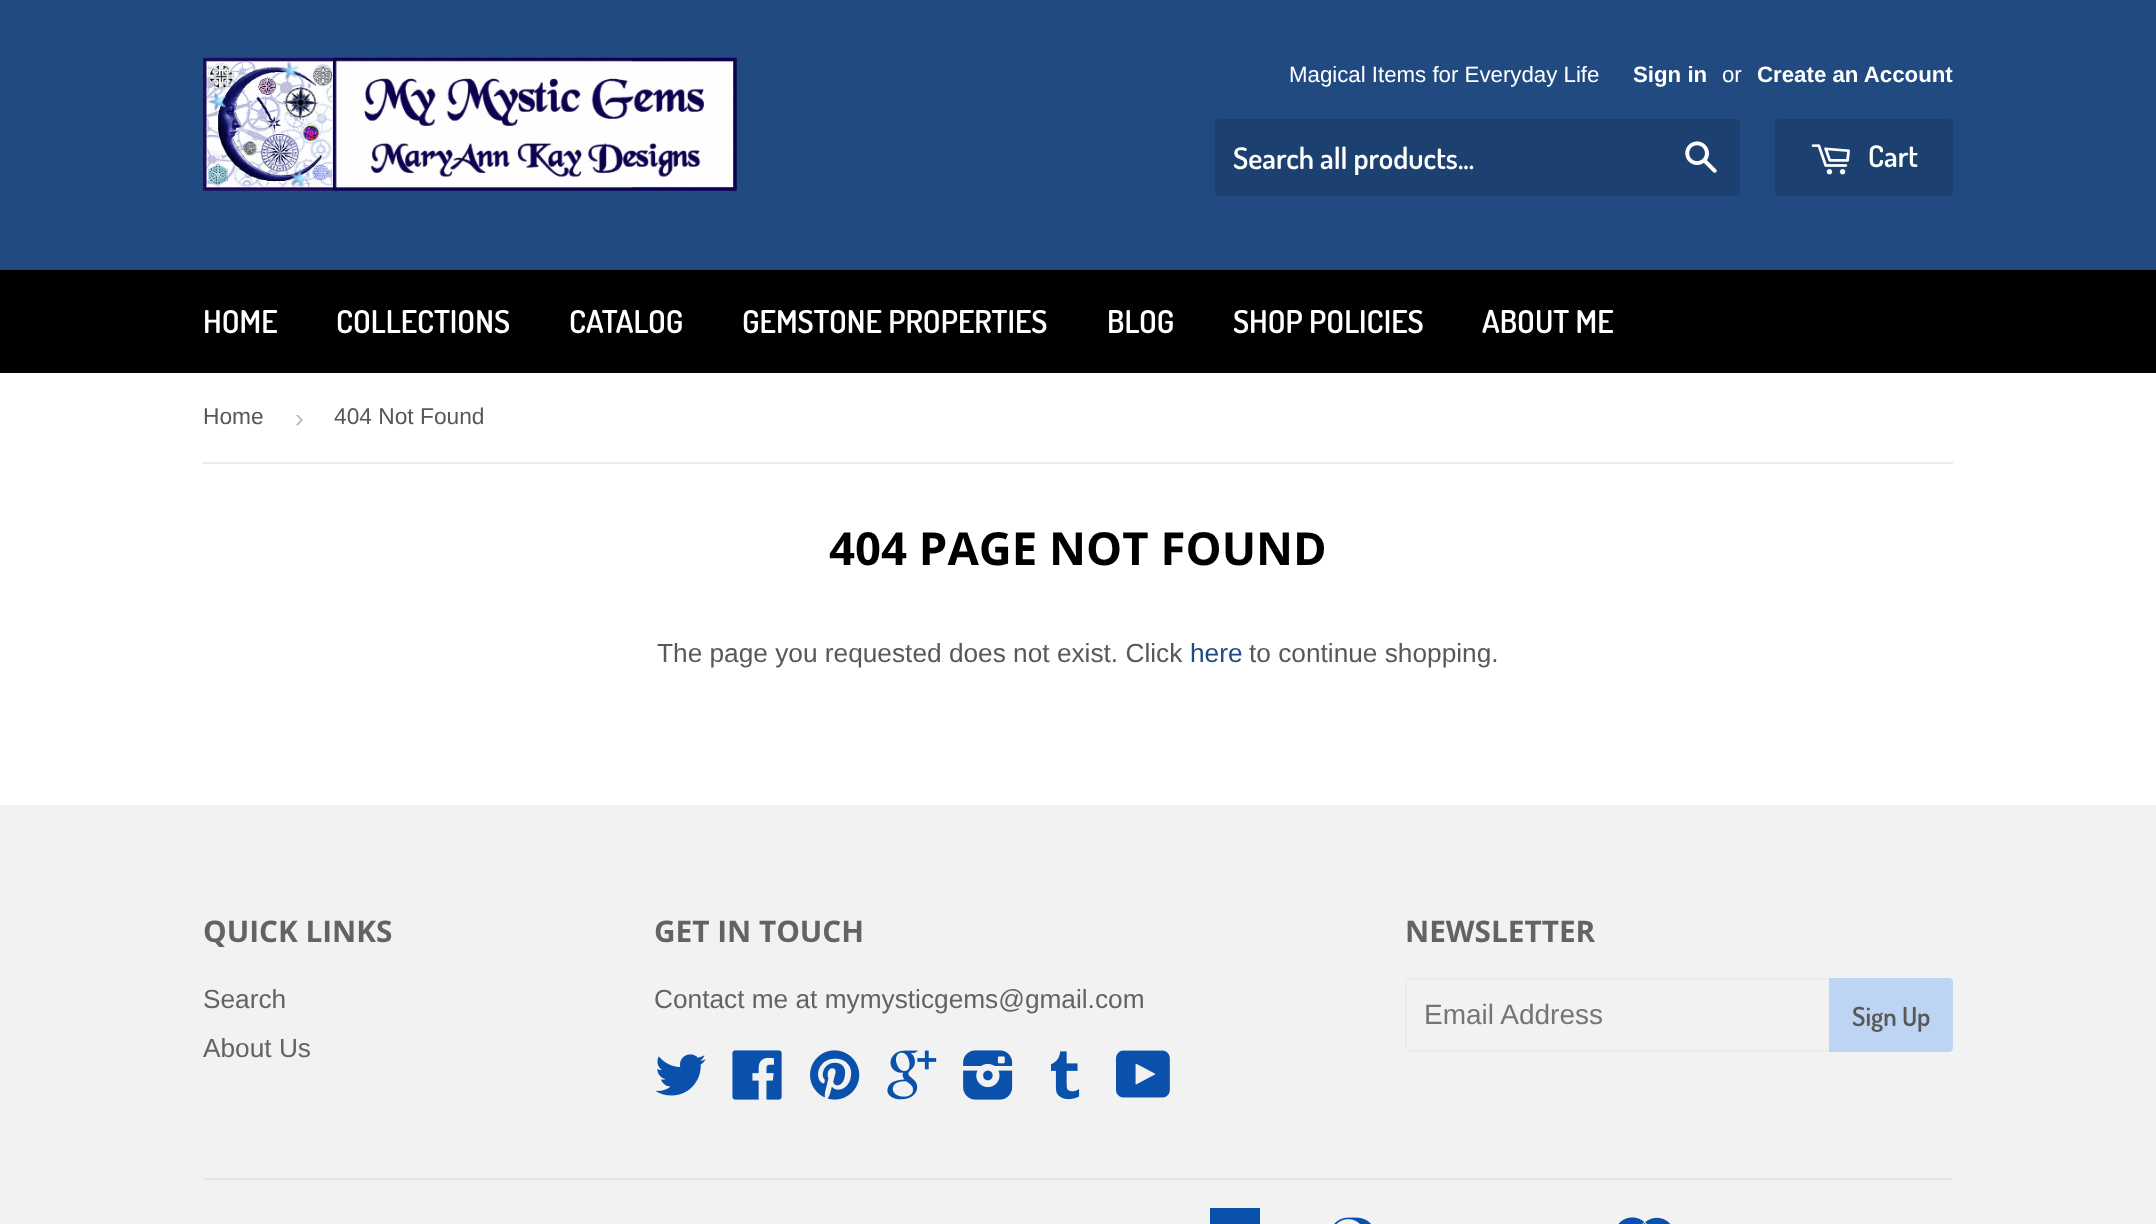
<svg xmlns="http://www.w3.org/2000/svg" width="2156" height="1224">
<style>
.a{font:22.25px Liberation Sans;fill:#fff}
.b{font:bold 22.25px Liberation Sans;fill:#fff}
.c{font:600 29.75px Dosis;fill:#fff}
.d{font:600 31.5px Dosis;fill:#fff}
.e{font:22.75px Liberation Sans;fill:#585858}
.f{font:26.25px Liberation Sans;fill:#bbb}
.g{font:bold 45.5px Open Sans;fill:#000}
.h{font:26.25px Liberation Sans;fill:#585858}
.i{font:26.25px Liberation Sans;fill:#204a80}
.j{font:bold 29.75px Open Sans;fill:#636363}
.k{font:26.25px Liberation Sans;fill:#636363}
.l{font:28px Liberation Sans;fill:#757575}
.m{font:600 26.25px Dosis;fill:#585858}
</style>
<defs>
<clipPath id="clip1"><path d="M1232 138h422v37H1232z"/></clipPath>
</defs>
<rect width="100%" height="100%" fill="#fff"/>
<path fill="#204a80" d="M0 0h2156v270H0z"/>
<image href="1.png" x="203" y="57" width="534" height="134"/>
<rect fill="#1c4170" x="1215" y="119" width="525" height="77" rx="4"/>
<image href="2.png" x="1685" y="141" width="32" height="32"/>
<rect fill="#1c4170" x="1775" y="119" width="178" height="77" rx="4"/>
<image href="3.png" x="1811" y="144" width="39" height="31"/>
<path fill="#000" d="M0 270h2156v103H0z"/>
<path fill="#ececec" d="M203 462h1750v2H203z"/>
<path fill="#f2f2f2" d="M0 805h2156v419H0z"/>
<image href="4.png" x="655" y="1054" width="51" height="42"/>
<image href="5.png" x="732" y="1050" width="50" height="50"/>
<image href="6.png" x="810" y="1050" width="50" height="50"/>
<image href="7.png" x="887" y="1050" width="50" height="50"/>
<image href="8.png" x="963" y="1050" width="50" height="50"/>
<image href="9.png" x="1051" y="1051" width="29" height="49"/>
<image href="10.png" x="1116" y="1050" width="54" height="48"/>
<path fill="#ececec" d="M1407 978h422v2H1407z"/>
<path fill="#ececec" d="M1407 1050h422v2H1407z"/>
<path fill="#ececec" d="M1405 980h2v70H1405z"/>
<path fill="#bdd5f2" d="M1829 978h120c2 0 4 2 4 4v66c0 2-2 4-4 4h-120z"/>
<path fill="#e5e5e5" d="M203 1178h1750v2H203z"/>
<path fill="#0951ab" d="M1210 1208h50v16H1210z"/>
<image href="11.png" x="1334" y="1217" width="37" height="7"/>
<image href="12.png" x="1618" y="1217" width="53" height="7"/>
<text class="a" x="1289" y="82">Magical Items for Everyday Life</text>
<text class="b" x="1633" y="82">Sign in</text>
<text class="a" x="1722" y="82">or</text>
<text class="b" x="1757" y="82">Create an Account</text>
<g clip-path="url(#clip1)">
<text class="c" x="1233" y="169">Search all products...</text>
</g>
<text class="c" x="1868" y="167">Cart</text>
<text class="d" x="203" y="333">HOME</text>
<text class="d" x="336" y="333">COLLECTIONS</text>
<text class="d" x="569" y="333">CATALOG</text>
<text class="d" x="742" y="333">GEMSTONE PROPERTIES</text>
<text class="d" x="1107" y="333">BLOG</text>
<text class="d" x="1233" y="333">SHOP POLICIES</text>
<text class="d" x="1482" y="333">ABOUT ME</text>
<text class="e" x="203" y="424">Home</text>
<text class="f" x="295" y="427">›</text>
<text class="e" x="334" y="424">404 Not Found</text>
<text class="g" x="829" y="565">404 PAGE NOT FOUND</text>
<text class="h" x="657" y="662">The page you requested does not exist. Click</text>
<text class="i" x="1190" y="662">here</text>
<text class="h" x="1249" y="662">to continue shopping.</text>
<text class="j" x="203" y="942">QUICK LINKS</text>
<text class="k" x="203" y="1008">Search</text>
<text class="k" x="203" y="1057">About Us</text>
<text class="j" x="654" y="942">GET IN TOUCH</text>
<text class="k" x="654" y="1008">Contact me at mymysticgems@gmail.com</text>
<text class="j" x="1405" y="942">NEWSLETTER</text>
<text class="l" x="1424" y="1024">Email Address</text>
<text class="m" x="1852" y="1026">Sign Up</text>
</svg>
